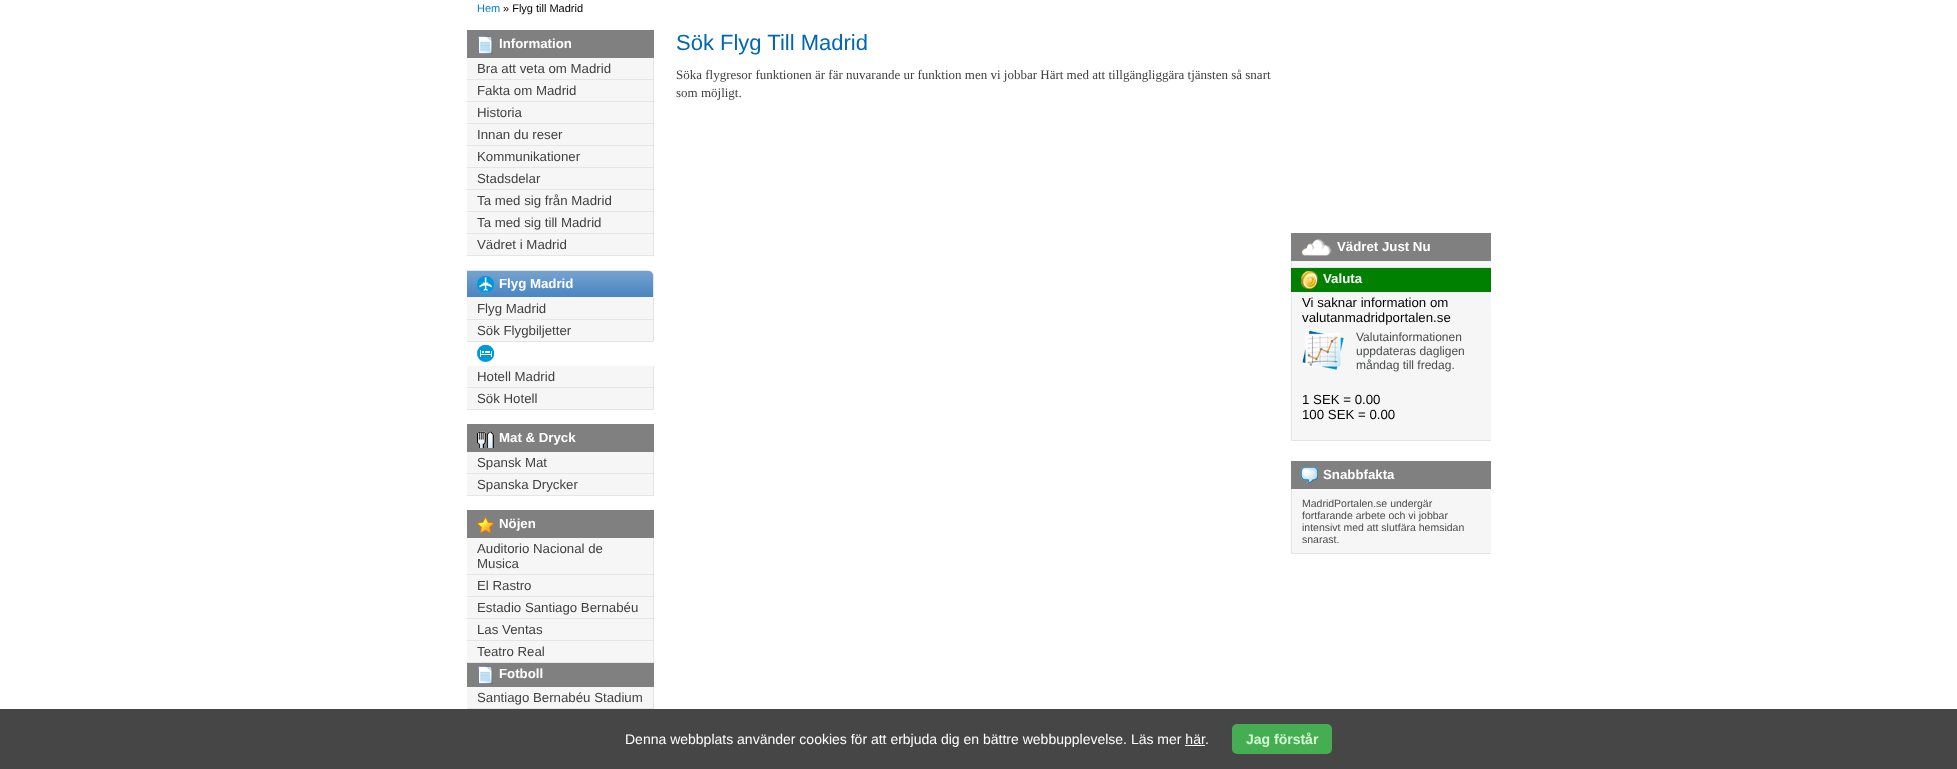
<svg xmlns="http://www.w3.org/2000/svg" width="1957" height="769">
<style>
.a{font:11px Liberation Sans;fill:#007ee1}
.b{font:11px Liberation Sans;fill:#000}
.c{font:bold 13.25px Liberation Sans;fill:#fff}
.d{font:13.25px Liberation Sans;fill:#404040}
.e{font:22px Liberation Sans;fill:#0067b1}
.f{font:13px Liberation Serif;fill:#404040}
.g{font:13.25px Liberation Sans;fill:#000}
.h{font:12px Liberation Sans;fill:#494b4c}
.i{font:10.5px Liberation Sans;fill:#494b4c}
.j{font:14px Liberation Sans;fill:#fff}
.k{font:bold 14px Liberation Sans;fill:#d6f7d3}
</style>
<rect width="100%" height="100%" fill="#fff"/>
<path fill="#808080" d="M467 30h187v28H467z"/>
<image href="1.png" x="478" y="36" width="15" height="18"/>
<path fill="#f7f6f6" d="M467 58h186v197H467z"/>
<path fill="#e5e5e5" d="M653 58h1v198H653z"/>
<path fill="#e5e5e5" d="M467 79h187v1H467z"/>
<path fill="#e5e5e5" d="M467 101h187v1H467z"/>
<path fill="#e5e5e5" d="M467 123h187v1H467z"/>
<path fill="#e5e5e5" d="M467 145h187v1H467z"/>
<path fill="#e5e5e5" d="M467 167h187v1H467z"/>
<path fill="#e5e5e5" d="M467 189h187v1H467z"/>
<path fill="#e5e5e5" d="M467 211h187v1H467z"/>
<path fill="#e5e5e5" d="M467 233h187v1H467z"/>
<path fill="#e5e5e5" d="M467 255h187v1H467z"/>
<image href="2.png" x="467" y="270" width="187" height="28"/>
<image href="3.png" x="477" y="276" width="17" height="17"/>
<path fill="#f7f6f6" d="M467 298h186v43H467z"/>
<path fill="#e5e5e5" d="M653 298h1v44H653z"/>
<path fill="#e5e5e5" d="M467 319h187v1H467z"/>
<path fill="#e5e5e5" d="M467 341h187v1H467z"/>
<image href="4.png" x="477" y="345" width="17" height="18"/>
<path fill="#f7f6f6" d="M467 366h186v43H467z"/>
<path fill="#e5e5e5" d="M653 366h1v44H653z"/>
<path fill="#e5e5e5" d="M467 387h187v1H467z"/>
<path fill="#e5e5e5" d="M467 409h187v1H467z"/>
<path fill="#808080" d="M467 424h187v28H467z"/>
<image href="5.png" x="477" y="431" width="17" height="17"/>
<path fill="#f7f6f6" d="M467 452h186v43H467z"/>
<path fill="#e5e5e5" d="M653 452h1v44H653z"/>
<path fill="#e5e5e5" d="M467 473h187v1H467z"/>
<path fill="#e5e5e5" d="M467 495h187v1H467z"/>
<path fill="#808080" d="M467 510h187v28H467z"/>
<image href="6.png" x="477" y="517" width="17" height="16"/>
<path fill="#f7f6f6" d="M467 538h186v124H467z"/>
<path fill="#e5e5e5" d="M653 538h1v125H653z"/>
<path fill="#e5e5e5" d="M467 574h187v1H467z"/>
<path fill="#e5e5e5" d="M467 596h187v1H467z"/>
<path fill="#e5e5e5" d="M467 618h187v1H467z"/>
<path fill="#e5e5e5" d="M467 640h187v1H467z"/>
<path fill="#e5e5e5" d="M467 662h187v1H467z"/>
<path fill="#808080" d="M467 663h187v24H467z"/>
<image href="1.png" x="478" y="666" width="15" height="18"/>
<path fill="#f7f6f6" d="M467 687h186v21H467z"/>
<path fill="#e5e5e5" d="M653 687h1v22H653z"/>
<path fill="#e5e5e5" d="M467 708h187v1H467z"/>
<path fill="#808080" d="M1291 233h200v28H1291z"/>
<image href="7.png" x="1301" y="239" width="31" height="17"/>
<path fill="#f7f6f6" d="M1291 261h200v6H1291z"/>
<path fill="#e5e5e5" d="M1291 267h200v1H1291z"/>
<path fill="#e5e5e5" d="M1291 261h1v7H1291z"/>
<path fill="#008000" d="M1291 268h200v24H1291z"/>
<image href="8.png" x="1301" y="271" width="17" height="18"/>
<path fill="#f7f6f6" d="M1292 292h199v148H1292z"/>
<path fill="#e5e5e5" d="M1291 440h200v1H1291z"/>
<path fill="#e5e5e5" d="M1291 292h1v149H1291z"/>
<image href="9.png" x="1302" y="330" width="42" height="40"/>
<path fill="#808080" d="M1291 461h200v28H1291z"/>
<image href="10.png" x="1301" y="467" width="17" height="17"/>
<path fill="#f7f6f6" d="M1292 489h199v64H1292z"/>
<path fill="#e5e5e5" d="M1291 553h200v1H1291z"/>
<path fill="#e5e5e5" d="M1291 489h1v65H1291z"/>
<path fill="#464646" d="M0 709h1957v60H0z"/>
<rect fill="#45ae52" x="1232" y="724" width="100" height="30" rx="5"/>
<path fill="#fff" d="M1185 745h20v1H1185z"/>
<text class="a" x="477" y="12">Hem</text>
<text class="b" x="503" y="12">» Flyg till Madrid</text>
<text class="c" x="499" y="48">Information</text>
<text class="d" x="477" y="73">Bra att veta om Madrid</text>
<text class="d" x="477" y="95">Fakta om Madrid</text>
<text class="d" x="477" y="117">Historia</text>
<text class="d" x="477" y="139">Innan du reser</text>
<text class="d" x="477" y="161">Kommunikationer</text>
<text class="d" x="477" y="183">Stadsdelar</text>
<text class="d" x="477" y="205">Ta med sig från Madrid</text>
<text class="d" x="477" y="227">Ta med sig till Madrid</text>
<text class="d" x="477" y="249">Vädret i Madrid</text>
<text class="c" x="499" y="288">Flyg Madrid</text>
<text class="d" x="477" y="313">Flyg Madrid</text>
<text class="d" x="477" y="335">Sök Flygbiljetter</text>
<text class="d" x="477" y="381">Hotell Madrid</text>
<text class="d" x="477" y="403">Sök Hotell</text>
<text class="c" x="499" y="442">Mat &amp; Dryck</text>
<text class="d" x="477" y="467">Spansk Mat</text>
<text class="d" x="477" y="489">Spanska Drycker</text>
<text class="c" x="499" y="528">Nöjen</text>
<text class="d" x="477" y="553">Auditorio Nacional de</text>
<text class="d" x="477" y="568">Musica</text>
<text class="d" x="477" y="590">El Rastro</text>
<text class="d" x="477" y="612">Estadio Santiago Bernabéu</text>
<text class="d" x="477" y="634">Las Ventas</text>
<text class="d" x="477" y="656">Teatro Real</text>
<text class="c" x="499" y="678">Fotboll</text>
<text class="d" x="477" y="702">Santiago Bernabéu Stadium</text>
<text class="e" x="676" y="50">Sök Flyg Till Madrid</text>
<text class="f" x="676" y="79">Söka flygresor funktionen är fär nuvarande ur funktion men vi jobbar Härt med att tillgängliggära tjänsten så snart</text>
<text class="f" x="676" y="97">som möjligt.</text>
<text class="c" x="1337" y="251">Vädret Just Nu</text>
<text class="c" x="1323" y="283">Valuta</text>
<text class="g" x="1302" y="307">Vi saknar information om</text>
<text class="g" x="1302" y="322">valutanmadridportalen.se</text>
<text class="h" x="1356" y="341">Valutainformationen</text>
<text class="h" x="1356" y="355">uppdateras dagligen</text>
<text class="h" x="1356" y="369">måndag till fredag.</text>
<text class="g" x="1302" y="404">1 SEK = 0.00</text>
<text class="g" x="1302" y="419">100 SEK = 0.00</text>
<text class="c" x="1323" y="479">Snabbfakta</text>
<text class="i" x="1302" y="507">MadridPortalen.se undergär</text>
<text class="i" x="1302" y="519">fortfarande arbete och vi jobbar</text>
<text class="i" x="1302" y="531">intensivt med att slutfära hemsidan</text>
<text class="i" x="1302" y="543">snarast.</text>
<text class="j" x="625" y="744">Denna webbplats använder cookies för att erbjuda dig en bättre webbupplevelse. Läs mer här</text>
<text class="j" x="1205" y="744">.</text>
<text class="k" x="1246" y="744">Jag förstår</text>
</svg>
